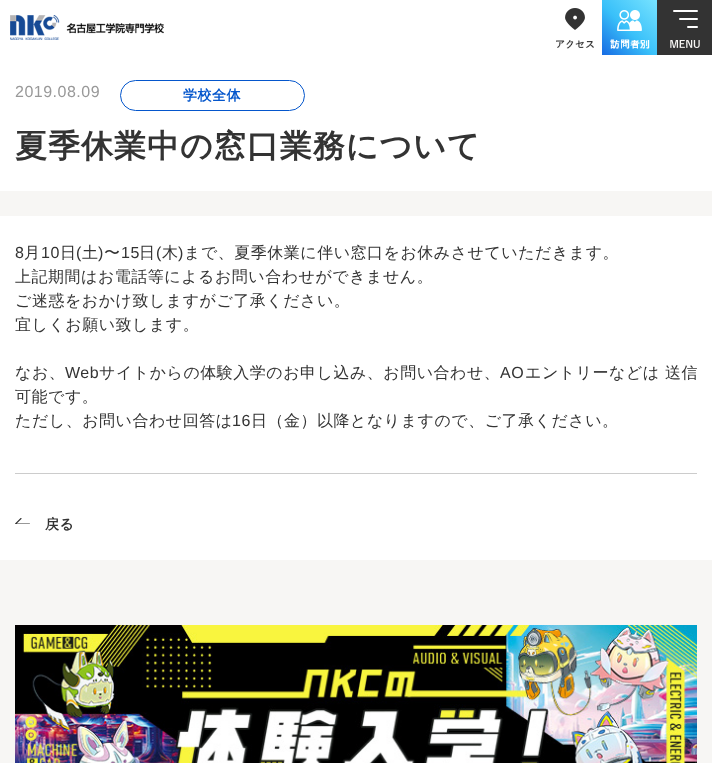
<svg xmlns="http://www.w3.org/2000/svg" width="712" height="763">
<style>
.a{font:16px Liberation Sans;letter-spacing:0.5px;fill:#999}
.b{font:bold 14px WenQuanYi Zen Hei;letter-spacing:0.5px;fill:#0456cc}
.c{font:bold 32px WenQuanYi Zen Hei;letter-spacing:1px;fill:#333}
.d{font:16px Liberation Sans;letter-spacing:0.5px;fill:#333}
.e{font:500 16px WenQuanYi Zen Hei;letter-spacing:0.5px;fill:#333}
.f{font:bold 14px WenQuanYi Zen Hei;letter-spacing:0.5px;fill:#333}
</style>
<defs>
<linearGradient id="g1" gradientUnits="userSpaceOnUse" x1="602" y1="55" x2="657" y2="0"><stop offset="0" stop-color="#176be3"/><stop offset="0.46" stop-color="#39c0f9"/><stop offset="1" stop-color="#77e3ff"/></linearGradient>
<clipPath id="clip1"><path d="M15 518h15v6H15z"/></clipPath>
</defs>
<rect width="100%" height="100%" fill="#fff"/>
<image href="1.png" x="10" y="15" width="154" height="25"/>
<image href="2.png" x="565" y="8" width="20" height="22"/>
<image href="3.png" x="556" y="40" width="38" height="9"/>
<path fill="url(#g1)" d="M602 0h55v55H602z"/>
<image href="4.png" x="617" y="10" width="25" height="21"/>
<image href="5.png" x="610" y="39" width="40" height="10"/>
<path fill="#333" d="M657 0h55v55H657z"/>
<rect fill="#fff" x="673" y="10" width="25" height="2" rx="1"/>
<rect fill="#fff" x="679" y="18" width="19" height="2" rx="1"/>
<rect fill="#fff" x="687" y="26" width="11" height="2" rx="1"/>
<image href="6.png" x="670" y="40" width="30" height="8"/>
<path fill="#f7f6f4" d="M0 191h712v25H0z"/>
<rect fill="none" stroke="#0456cc" x="120.5" y="80.5" width="184" height="30" rx="15"/>
<path fill="#ccc" d="M15 473h682v1H15z"/>
<g clip-path="url(#clip1)">
<path fill="none" stroke="#333" stroke-width="1.1" stroke-linecap="round" stroke-linejoin="round" d="M21 518.5l-5.5 5.5h14"/>
</g>
<path fill="#f7f6f4" d="M0 560h712v203H0z"/>
<image href="7.png" x="15" y="625" width="682" height="138"/>
<text class="a" x="15" y="97">2019.08.09</text>
<text class="b" x="183" y="100">学校全体</text>
<text class="c" x="15" y="157">夏季休業中の窓口業務について</text>
<text class="d" x="15" y="258">8</text>
<text class="e" x="24" y="258">月</text>
<text class="d" x="41" y="258">10</text>
<text class="e" x="60" y="258">日</text>
<text class="d" x="76" y="258">(</text>
<text class="e" x="82" y="258">土</text>
<text class="d" x="98" y="258">)</text>
<text class="e" x="104" y="258">〜</text>
<text class="d" x="121" y="258">15</text>
<text class="e" x="139" y="258">日</text>
<text class="d" x="156" y="258">(</text>
<text class="e" x="162" y="258">木</text>
<text class="d" x="178" y="258">)</text>
<text class="e" x="184" y="258">まで、夏季休業に伴い窓口をお休みさせていただきます。</text>
<text class="e" x="15" y="282">上記期間はお電話等によるお問い合わせができません。</text>
<text class="e" x="15" y="306">ご迷惑をおかけ致しますがご了承ください。</text>
<text class="e" x="15" y="330">宜しくお願い致します。</text>
<text class="e" x="15" y="378">なお、</text>
<text class="d" x="65" y="378">Web</text>
<text class="e" x="99" y="378">サイトからの体験入学のお申し込み、お問い合わせ、</text>
<text class="d" x="500" y="378">AO</text>
<text class="e" x="525" y="378">エントリーなどは 送信</text>
<text class="e" x="15" y="402">可能です。</text>
<text class="e" x="15" y="426">ただし、お問い合わせ回答は</text>
<text class="d" x="232" y="426">16</text>
<text class="e" x="251" y="426">日（金）以降となりますので、ご了承ください。</text>
<text class="f" x="45" y="529">戻る</text>
</svg>
